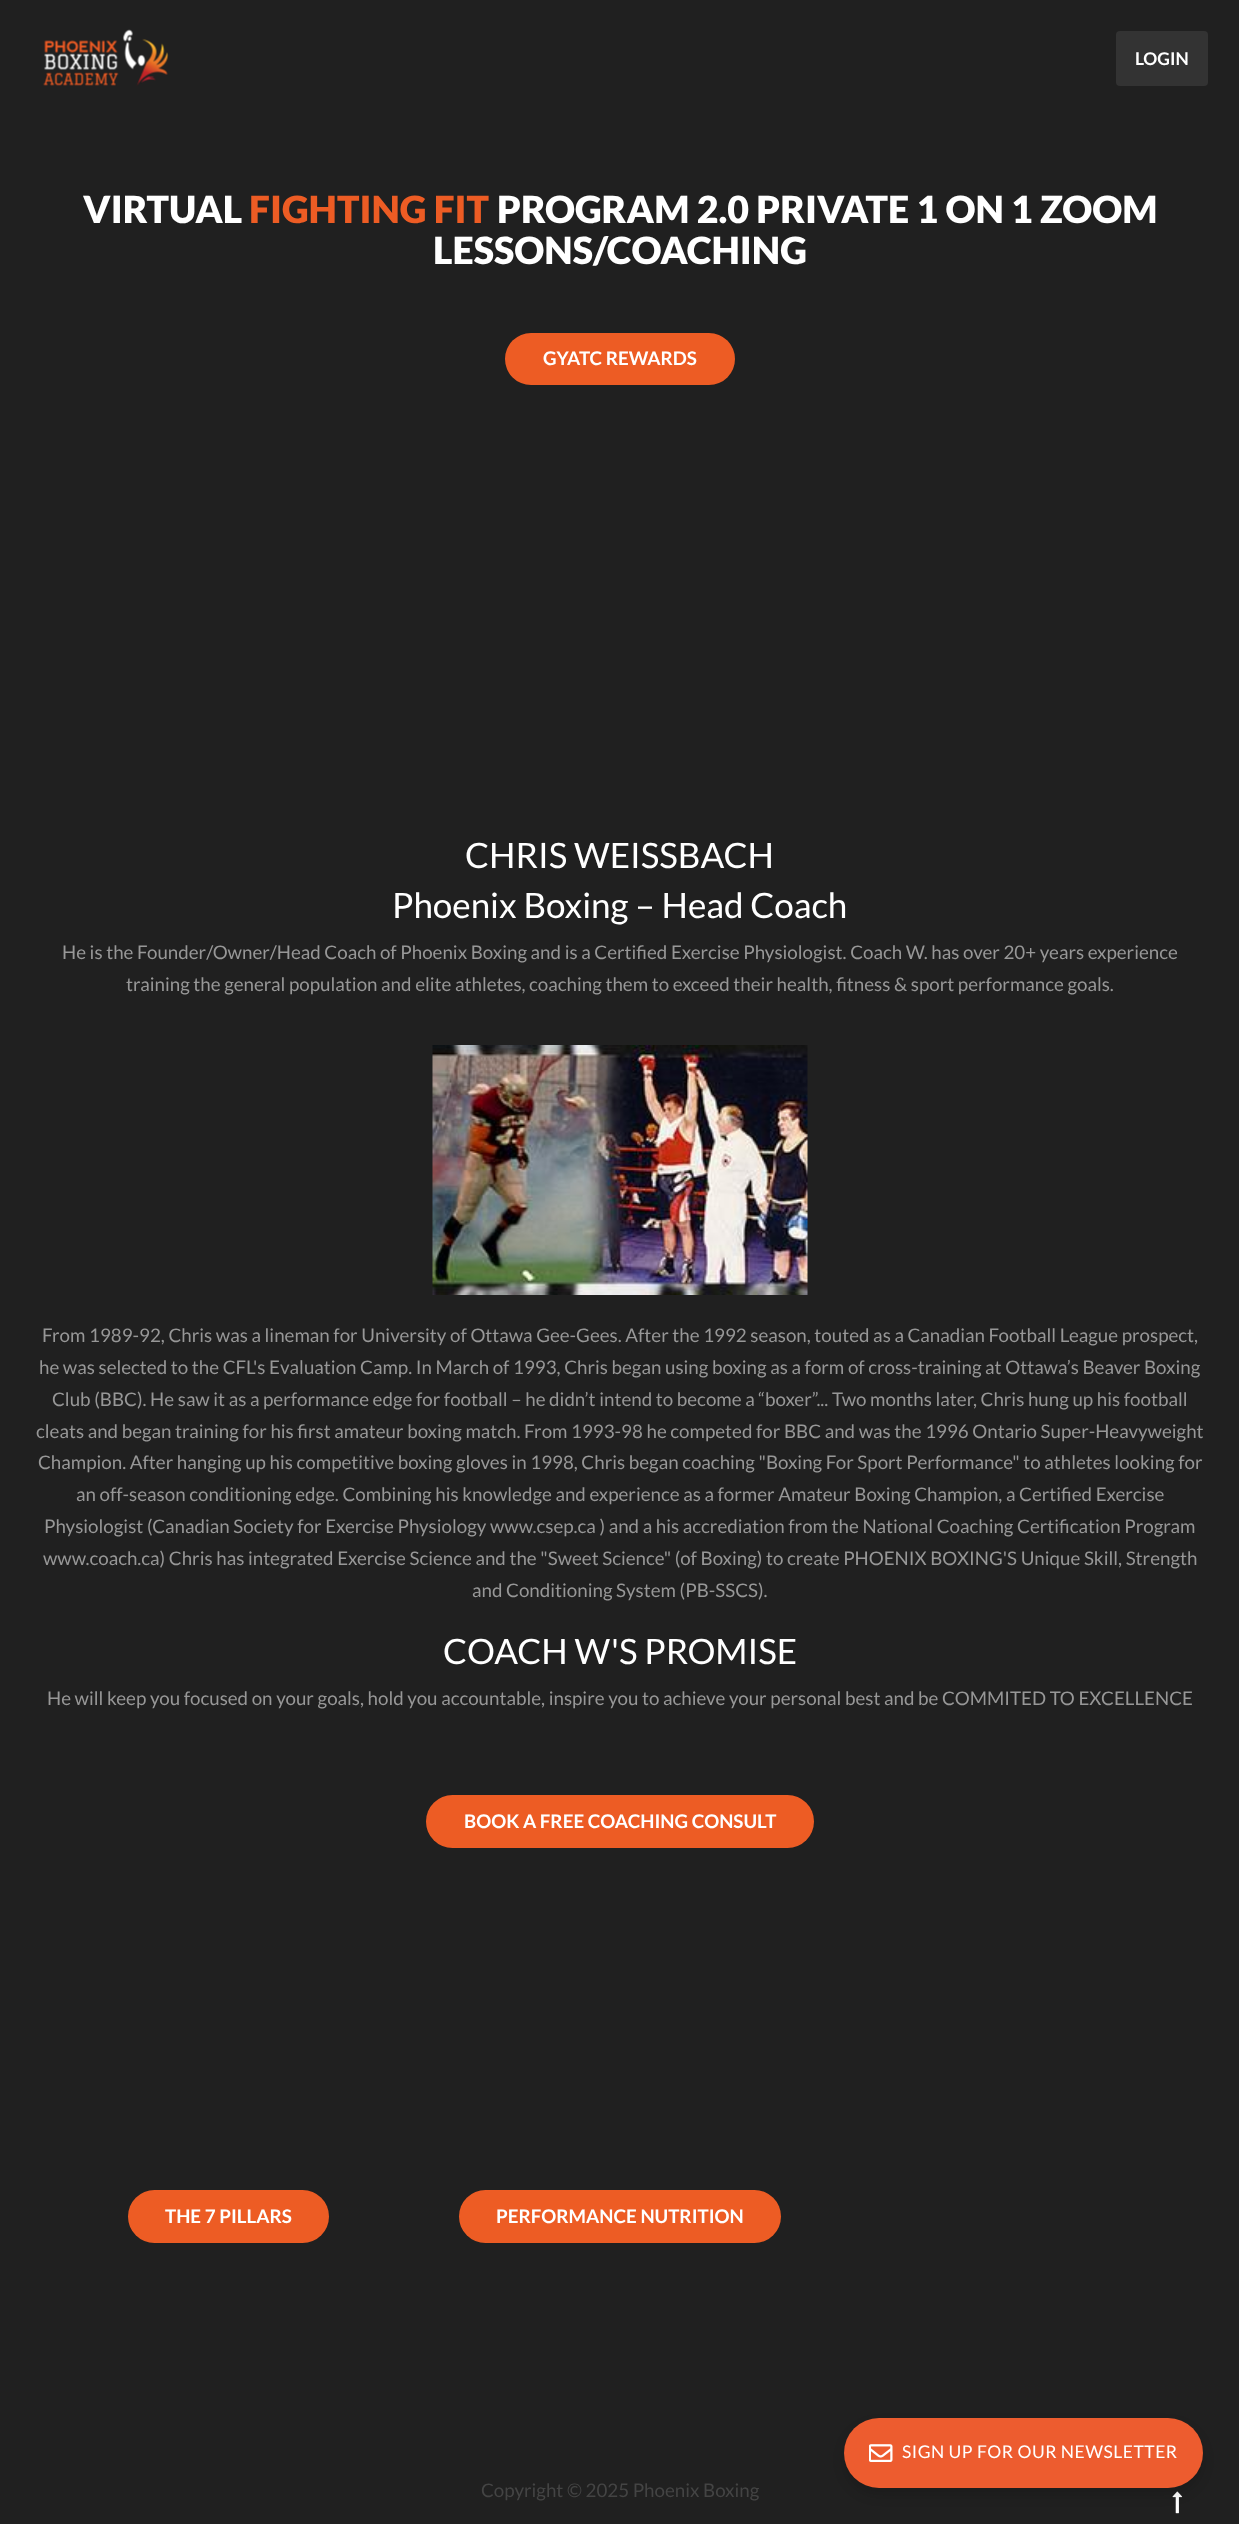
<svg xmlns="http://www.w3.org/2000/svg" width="1239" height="2524">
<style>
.a{font:bold 17.5px Lato;fill:#fff}
.b{font:900 37.5px Lato;fill:#fff}
.c{font:900 37.5px Lato;fill:#ed5c24}
.d{font:bold 18.75px Lato;fill:#fff}
.e{font:35px Lato;fill:#fff}
.f{font:18.75px Lato;fill:#979797}
.g{font:17.5px Lato;letter-spacing:0.5px;fill:#fff}
.h{font:18.75px Lato;fill:#444}
</style>
<rect width="100%" height="100%" fill="#202020"/>
<image href="1.png" x="43" y="29" width="126" height="57"/>
<rect fill="#333" x="1116" y="31" width="92" height="55" rx="4"/>
<rect fill="#ed5c24" x="505" y="333" width="230" height="52" rx="26"/>
<image href="2.png" x="432" y="1045" width="376" height="250"/>
<rect fill="#ed5c24" x="426" y="1795" width="388" height="53" rx="26.5"/>
<rect fill="#ed5c24" x="128" y="2190" width="201" height="53" rx="26.5"/>
<rect fill="#ed5c24" x="459" y="2190" width="322" height="53" rx="26.5"/>
<image href="4.png" x="1172" y="2491" width="11" height="23"/>
<rect fill="#00000024" filter="blur(6px)" x="844" y="2425" width="359" height="70" rx="35"/>
<rect fill="#ed5c2f" x="844" y="2418" width="359" height="70" rx="35"/>
<image href="3.png" x="869" y="2444" width="24" height="18"/>
<text class="a" x="1135" y="65">LOGIN</text>
<text class="b" x="83" y="223">VIRTUAL</text>
<text class="c" x="249" y="223">FIGHTING FIT</text>
<text class="b" x="497" y="223">PROGRAM 2.0 PRIVATE 1 ON 1 ZOOM</text>
<text class="b" x="433" y="264">LESSONS/COACHING</text>
<text class="d" x="543" y="365">GYATC REWARDS</text>
<text class="e" x="465" y="868">CHRIS WEISSBACH</text>
<text class="e" x="392" y="918">Phoenix Boxing – Head Coach</text>
<text class="f" x="62" y="959">He is the Founder/Owner/Head Coach of Phoenix Boxing and is a Certified Exercise Physiologist. Coach W. has over 20+ years experience</text>
<text class="f" x="126" y="991">training the general population and elite athletes, coaching them to exceed their health, fitness &amp; sport performance goals.</text>
<text class="f" x="42" y="1342">From 1989-92, Chris was a lineman for University of Ottawa Gee-Gees. After the 1992 season, touted as a Canadian Football League prospect,</text>
<text class="f" x="39" y="1374">he was selected to the CFL's Evaluation Camp. In March of 1993, Chris began using boxing as a form of cross-training at Ottawa’s Beaver Boxing</text>
<text class="f" x="52" y="1406">Club (BBC). He saw it as a performance edge for football – he didn’t intend to become a “boxer”... Two months later, Chris hung up his football</text>
<text class="f" x="36" y="1438">cleats and began training for his first amateur boxing match. From 1993-98 he competed for BBC and was the 1996 Ontario Super-Heavyweight</text>
<text class="f" x="38" y="1469">Champion. After hanging up his competitive boxing gloves in 1998, Chris began coaching "Boxing For Sport Performance" to athletes looking for</text>
<text class="f" x="76" y="1501">an off-season conditioning edge. Combining his knowledge and experience as a former Amateur Boxing Champion, a Certified Exercise</text>
<text class="f" x="44" y="1533">Physiologist (Canadian Society for Exercise Physiology www.csep.ca ) and a his accrediation from the National Coaching Certification Program</text>
<text class="f" x="43" y="1565">www.coach.ca) Chris has integrated Exercise Science and the "Sweet Science" (of Boxing) to create PHOENIX BOXING'S Unique Skill, Strength</text>
<text class="f" x="472" y="1597">and Conditioning System (PB-SSCS).</text>
<text class="e" x="443" y="1664">COACH W'S PROMISE</text>
<text class="f" x="47" y="1705">He will keep you focused on your goals, hold you accountable, inspire you to achieve your personal best and be COMMITED TO EXCELLENCE</text>
<text class="d" x="464" y="1828">BOOK A FREE COACHING CONSULT</text>
<text class="d" x="165" y="2223">THE 7 PILLARS</text>
<text class="d" x="496" y="2223">PERFORMANCE NUTRITION</text>
<text class="g" x="902" y="2458">SIGN UP FOR OUR NEWSLETTER</text>
<text class="h" x="481" y="2497">Copyright © 2025 Phoenix Boxing</text>
</svg>
